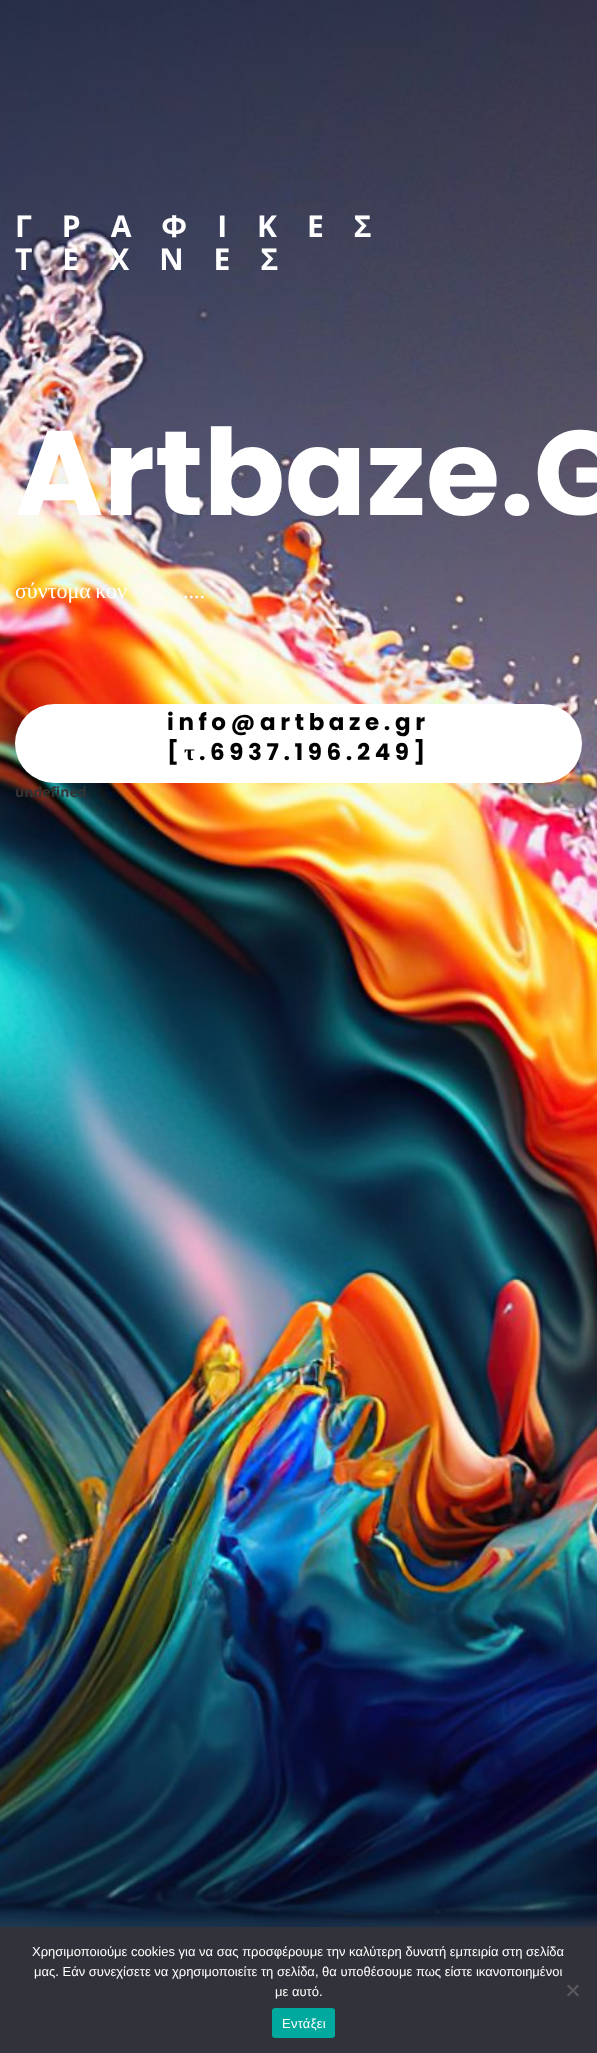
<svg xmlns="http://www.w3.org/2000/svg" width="597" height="2053">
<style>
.a{font:bold 30px Open Sans;letter-spacing:30px;fill:#fff}
.b{font:bold 120px Poppins;fill:#fff}
.c{font:22px Liberation Serif;fill:#fff}
.d{font:bold 23px Poppins;letter-spacing:4.6px;fill:#000}
.e{font:bold 23px Liberation Serif;letter-spacing:4.6px;fill:#000}
.f{font:bold 14px Open Sans;fill:#333}
.g{font:13px Liberation Sans;fill:#fff}
.h{font:13px Liberation Sans;letter-spacing:0.25px;fill:#fff}
</style>
<rect width="100%" height="100%" fill="#fff"/>
<image href="1.png" x="0" y="0" width="597" height="1927"/>
<rect fill="#fff" x="15" y="704" width="567" height="79" rx="39.5"/>
<path fill="#32323a" d="M0 1927h597v126H0z"/>
<path fill="#59595d" d="M577.5 1984.5l1.5 1.5l-10.5 10.5l-1.5-1.5z"/>
<path fill="#59595d" d="M567 1986l1.5-1.5l10.5 10.5l-1.5 1.5z"/>
<rect fill="#00a99d" x="272" y="2008" width="63" height="30" rx="3"/>
<text class="a" x="15" y="237">ΓΡΑΦΙΚΕΣ</text>
<text class="a" x="15" y="270">ΤΕΧΝΕΣ</text>
<text class="b" x="15" y="515">Artbaze.G</text>
<text class="c" x="15" y="598" word-spacing="-1">σύντομα κον</text>
<text class="c" x="183" y="598" word-spacing="-1">....</text>
<text class="d" x="167" y="730">info@artbaze.gr</text>
<text class="d" x="167" y="760">[</text>
<text class="e" x="184" y="760">τ</text>
<text class="d" x="199" y="760">.6937.196.249]</text>
<text class="f" x="15" y="797">undefined</text>
<text class="g" x="32" y="1956">Χρησιμοποιούμε cookies για να σας προσφέρουμε την καλύτερη δυνατή εμπειρία στη σελίδα</text>
<text class="g" x="34" y="1976">μας. Εάν συνεχίσετε να χρησιμοποιείτε τη σελίδα, θα υποθέσουμε πως είστε ικανοποιημένοι</text>
<text class="g" x="275" y="1996">με αυτό.</text>
<text class="h" x="282" y="2028">Εντάξει</text>
</svg>
